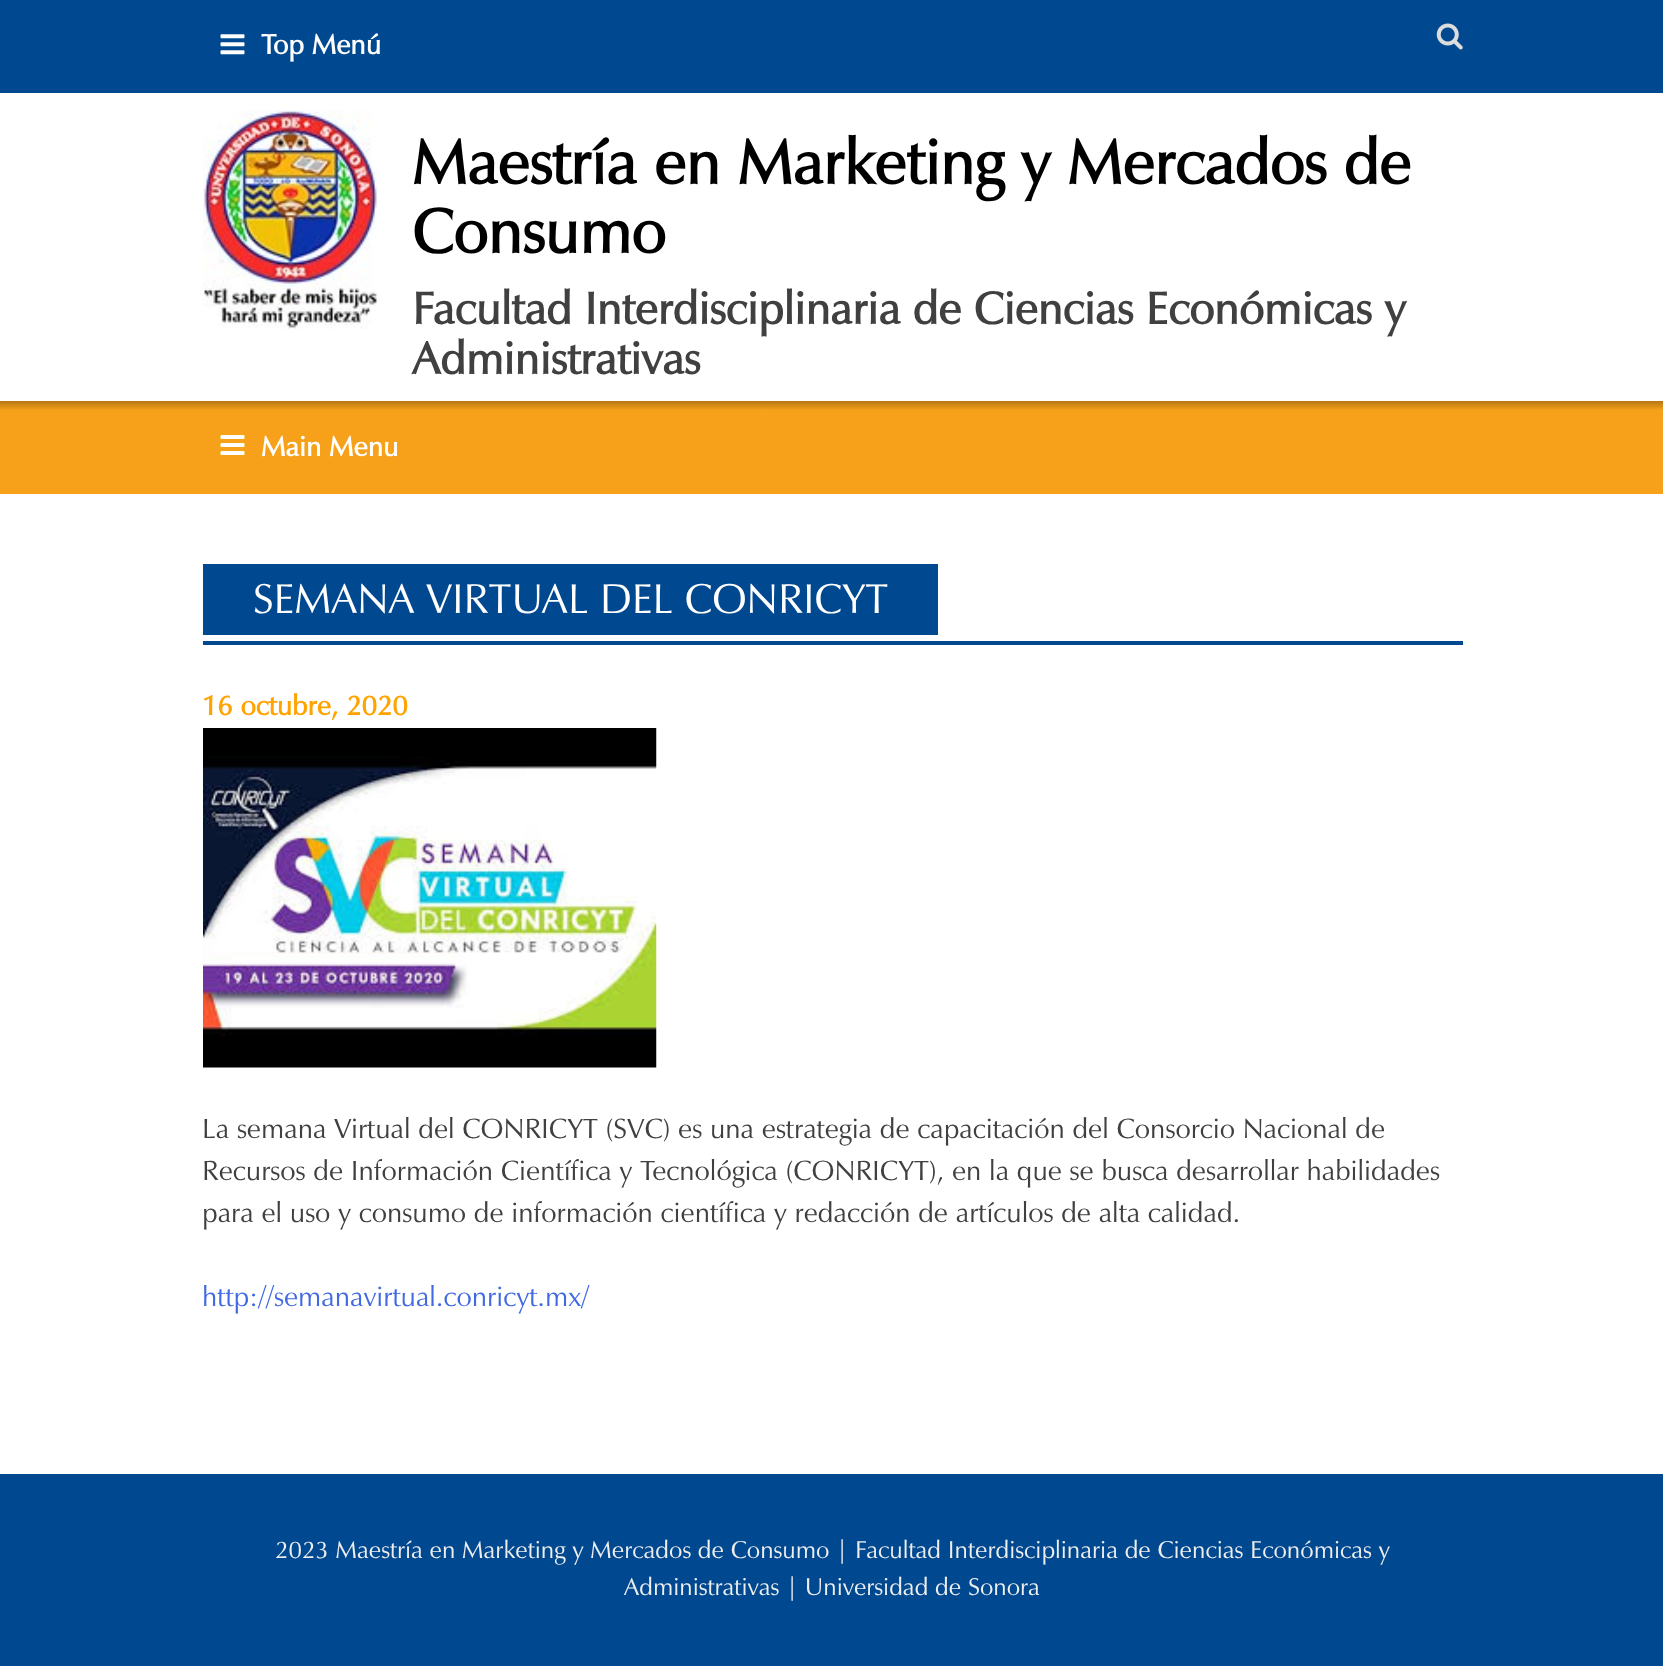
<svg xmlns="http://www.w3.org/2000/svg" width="1663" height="1677">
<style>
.a{font:bold 28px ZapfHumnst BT;fill:#fff}
.b{font:bold 63px ZapfHumnst BT;fill:#000}
.c{font:bold 45.5px ZapfHumnst BT;fill:#404040}
.d{font:42px ZapfHumnst BT;fill:#fff}
.e{font:bold 28px ZapfHumnst BT;fill:#ffa300}
.f{font:28px ZapfHumnst BT;fill:#404040}
.g{font:28px ZapfHumnst BT;fill:#4169e1}
.h{font:24.5px ZapfHumnst BT;fill:#eee}
</style>
<defs>
<linearGradient id="g1" gradientUnits="userSpaceOnUse" x1="832" y1="401" x2="832" y2="494"><stop offset="0" stop-color="#b57714"/><stop offset="0.01" stop-color="#bc7b15"/><stop offset="0.1" stop-color="#f7a11a"/></linearGradient>
</defs>
<rect width="100%" height="100%" fill="#fff"/>
<path fill="#004990" d="M0 0h1663v93H0z"/>
<image href="1.png" x="220" y="34" width="25" height="21"/>
<image href="2.png" x="1436" y="23" width="27" height="27"/>
<image href="3.png" x="203" y="110" width="175" height="219"/>
<path fill="url(#g1)" d="M0 401h1663v93H0z"/>
<image href="4.png" x="220" y="435" width="25" height="20"/>
<path fill="#004990" d="M203 641h1260v4H203z"/>
<path fill="#004990" d="M203 564h735v71H203z"/>
<image href="5.png" x="203" y="728" width="454" height="340"/>
<path fill="#004990" d="M0 1474h1663v192H0z"/>
<text class="a" x="261" y="54">Top Menú</text>
<text class="b" x="412" y="184">Maestría en Marketing y Mercados de</text>
<text class="b" x="412" y="253">Consumo</text>
<text class="c" x="412" y="324">Facultad Interdisciplinaria de Ciencias Económicas y</text>
<text class="c" x="412" y="374">Administrativas</text>
<text class="a" x="261" y="456">Main Menu</text>
<text class="d" x="253" y="613">SEMANA VIRTUAL DEL CONRICYT</text>
<text class="e" x="202" y="715">16 octubre, 2020</text>
<text class="f" x="202" y="1138">La semana Virtual del CONRICYT (SVC) es una estrategia de capacitación del Consorcio Nacional de</text>
<text class="f" x="202" y="1180">Recursos de Información Científica y Tecnológica (CONRICYT), en la que se busca desarrollar habilidades</text>
<text class="f" x="202" y="1222">para el uso y consumo de información científica y redacción de artículos de alta calidad.</text>
<text class="g" x="202" y="1306">http://semanavirtual.conricyt.mx/</text>
<text class="h" x="275" y="1558">2023 Maestría en Marketing y Mercados de Consumo | Facultad Interdisciplinaria de Ciencias Económicas y</text>
<text class="h" x="624" y="1595">Administrativas | Universidad de Sonora</text>
</svg>
